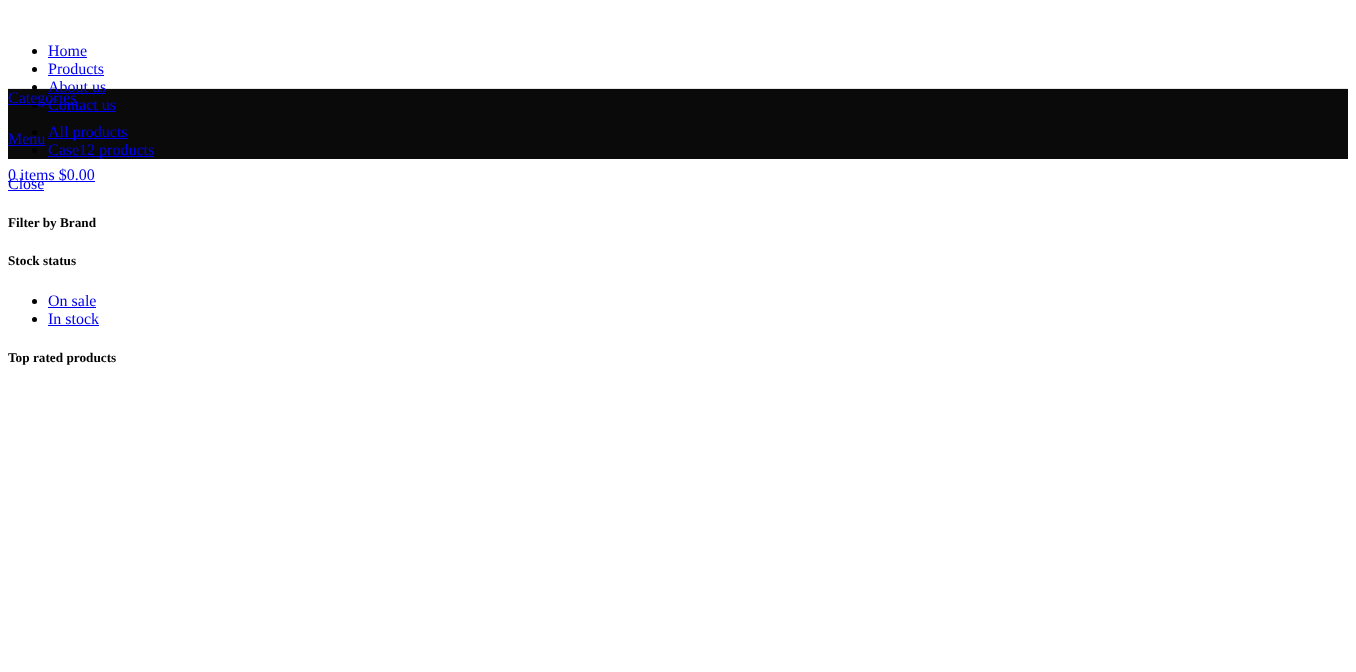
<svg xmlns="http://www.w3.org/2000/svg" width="1356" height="672">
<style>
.a{font:16px Liberation Serif;fill:#00e}
.b{font:bold 13.25px Liberation Serif;fill:#000}
</style>
<rect width="100%" height="100%" fill="#fff"/>
<path fill="#e6e6e6" d="M8 88h1340v1H8z"/>
<circle fill="#000" cx="34.5" cy="51.5" r="2.5"/>
<path fill="#00e" d="M48 57h39v1H48z"/>
<circle fill="#000" cx="34.5" cy="69.5" r="2.5"/>
<path fill="#00e" d="M48 75h56v1H48z"/>
<path fill="#0a0a0a" d="M8 89h1340v70H8z"/>
<circle fill="#000" cx="34.5" cy="87.5" r="2.5"/>
<path fill="#00e" d="M48 93h58v1H48z"/>
<circle fill="#000" cx="34.5" cy="105.5" r="2.5"/>
<path fill="#00e" d="M48 111h68v1H48z"/>
<path fill="#00e" d="M8 145h37v1H8z"/>
<path fill="#00e" d="M8 181h87v1H8z"/>
<path fill="#00e" d="M8 104h68v1H8z"/>
<path fill="#00e" d="M48 138h80v1H48z"/>
<circle fill="#000" cx="34.5" cy="150.5" r="2.5"/>
<path fill="#00e" d="M48 156h106v1H48z"/>
<path fill="#00e" d="M8 190h36v1H8z"/>
<circle fill="#000" cx="34.5" cy="301.5" r="2.5"/>
<path fill="#00e" d="M48 307h48v1H48z"/>
<circle fill="#000" cx="34.5" cy="319.5" r="2.5"/>
<path fill="#00e" d="M48 325h51v1H48z"/>
<text class="a" x="48" y="56">Home</text>
<text class="a" x="48" y="74">Products</text>
<text class="a" x="48" y="92">About us</text>
<text class="a" x="48" y="110">Contact us</text>
<text class="a" x="8" y="144">Menu</text>
<text class="a" x="8" y="180">0 items $0.00</text>
<text class="a" x="8" y="103">Categories</text>
<circle fill="#000" cx="34.5" cy="132.5" r="2.5"/>
<text class="a" x="48" y="137">All products</text>
<text class="a" x="48" y="155">Case12 products</text>
<text class="a" x="8" y="189">Close</text>
<text class="b" x="8" y="227">Filter by Brand</text>
<text class="b" x="8" y="265">Stock status</text>
<text class="a" x="48" y="306">On sale</text>
<text class="a" x="48" y="324">In stock</text>
<text class="b" x="8" y="362">Top rated products</text>
</svg>
